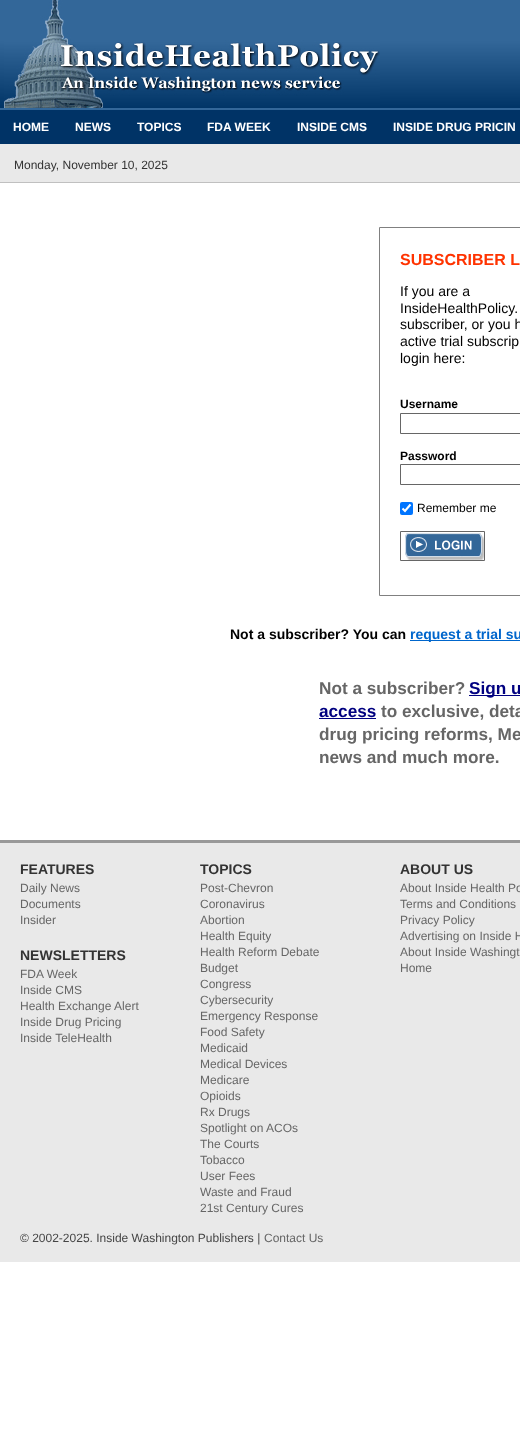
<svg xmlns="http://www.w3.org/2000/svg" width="520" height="1438">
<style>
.a{font:bold 12px Liberation Sans;fill:#fff}
.b{font:12px Liberation Sans;fill:#333}
.c{font:bold 16px Liberation Sans;fill:#f30}
.d{font:14px Liberation Sans;fill:#000}
.e{font:bold 12px Liberation Sans;fill:#000}
.f{font:12px Liberation Sans;fill:#000}
.g{font:bold 14px Liberation Sans;fill:#000}
.h{font:bold 14px Liberation Sans;fill:#06c}
.i{font:bold 17.2px Liberation Sans;fill:#666}
.j{font:bold 17.2px Liberation Sans;fill:#000080}
.k{font:bold 14px Liberation Sans;fill:#333}
.l{font:12px Liberation Sans;fill:#666}
.m{font:12px Liberation Sans;fill:#454545}
</style>
<rect width="100%" height="100%" fill="#fff"/>
<image href="1.png" x="0" y="0" width="520" height="110"/>
<image href="2.png" x="4" y="0" width="376" height="108"/>
<path fill="#036" d="M0 110h520v34H0z"/>
<path fill="#e9e9e9" d="M0 144h520v38H0z"/>
<path fill="#c0c0c0" d="M0 182h520v1H0z"/>
<path fill="none" stroke="#808080" d="M379.5 227.5h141v368H379.5z"/>
<path fill="none" stroke="#666" d="M400.5 413.5h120v20H400.5z"/>
<path fill="none" stroke="#666" d="M400.5 464.5h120v20H400.5z"/>
<rect fill="#0075ff" x="400" y="502" width="13" height="13" rx="2"/>
<path fill="none" stroke="#fff" stroke-width="2.1" d="M402.5 508.5l2.5 2.5l5.5-6.5"/>
<image href="3.png" x="405" y="533" width="79" height="27"/>
<path fill="none" stroke="#666" d="M400.5 531.5h84v29H400.5z"/>
<path fill="#06c" d="M410 640h110v1H410z"/>
<path fill="#000080" d="M469 695h51v1H469z"/>
<path fill="#000080" d="M319 718h57v1H319z"/>
<path fill="#e9e9e9" d="M0 843h520v419H0z"/>
<path fill="#999" d="M0 840h520v3H0z"/>
<text class="a" x="13" y="131">HOME</text>
<text class="a" x="75" y="131">NEWS</text>
<text class="a" x="137" y="131">TOPICS</text>
<text class="a" x="207" y="131">FDA WEEK</text>
<text class="a" x="297" y="131">INSIDE CMS</text>
<text class="a" x="393" y="131">INSIDE DRUG PRICIN</text>
<text class="b" x="14" y="169">Monday, November 10, 2025</text>
<text class="c" x="400" y="265">SUBSCRIBER L</text>
<text class="d" x="400" y="296">If you are a</text>
<text class="d" x="400" y="313">InsideHealthPolicy.</text>
<text class="d" x="400" y="329">subscriber, or you h</text>
<text class="d" x="400" y="346">active trial subscrip</text>
<text class="d" x="400" y="363">login here:</text>
<text class="e" x="400" y="408">Username</text>
<text class="e" x="400" y="460">Password</text>
<text class="f" x="417" y="512">Remember me</text>
<text class="g" x="230" y="639">Not a subscriber? You can</text>
<text class="h" x="410" y="639">request a trial su</text>
<text class="i" x="319" y="694">Not a subscriber?</text>
<text class="j" x="469" y="694">Sign u</text>
<text class="j" x="319" y="717">access</text>
<text class="i" x="381" y="717">to exclusive, deta</text>
<text class="i" x="319" y="740">drug pricing reforms, Me</text>
<text class="i" x="319" y="763">news and much more.</text>
<text class="k" x="20" y="874">FEATURES</text>
<text class="l" x="20" y="892">Daily News</text>
<text class="l" x="20" y="908">Documents</text>
<text class="l" x="20" y="924">Insider</text>
<text class="k" x="20" y="960">NEWSLETTERS</text>
<text class="l" x="20" y="978">FDA Week</text>
<text class="l" x="20" y="994">Inside CMS</text>
<text class="l" x="20" y="1010">Health Exchange Alert</text>
<text class="l" x="20" y="1026">Inside Drug Pricing</text>
<text class="l" x="20" y="1042">Inside TeleHealth</text>
<text class="k" x="200" y="874">TOPICS</text>
<text class="l" x="200" y="892">Post-Chevron</text>
<text class="l" x="200" y="908">Coronavirus</text>
<text class="l" x="200" y="924">Abortion</text>
<text class="l" x="200" y="940">Health Equity</text>
<text class="l" x="200" y="956">Health Reform Debate</text>
<text class="l" x="200" y="972">Budget</text>
<text class="l" x="200" y="988">Congress</text>
<text class="l" x="200" y="1004">Cybersecurity</text>
<text class="l" x="200" y="1020">Emergency Response</text>
<text class="l" x="200" y="1036">Food Safety</text>
<text class="l" x="200" y="1052">Medicaid</text>
<text class="l" x="200" y="1068">Medical Devices</text>
<text class="l" x="200" y="1084">Medicare</text>
<text class="l" x="200" y="1100">Opioids</text>
<text class="l" x="200" y="1116">Rx Drugs</text>
<text class="l" x="200" y="1132">Spotlight on ACOs</text>
<text class="l" x="200" y="1148">The Courts</text>
<text class="l" x="200" y="1164">Tobacco</text>
<text class="l" x="200" y="1180">User Fees</text>
<text class="l" x="200" y="1196">Waste and Fraud</text>
<text class="l" x="200" y="1212">21st Century Cures</text>
<text class="k" x="400" y="874">ABOUT US</text>
<text class="l" x="400" y="892">About Inside Health Po</text>
<text class="l" x="400" y="908">Terms and Conditions</text>
<text class="l" x="400" y="924">Privacy Policy</text>
<text class="l" x="400" y="940">Advertising on Inside H</text>
<text class="l" x="400" y="956">About Inside Washingt</text>
<text class="l" x="400" y="972">Home</text>
<text class="m" x="20" y="1242">© 2002-2025. Inside Washington Publishers |</text>
<text class="l" x="264" y="1242">Contact Us</text>
</svg>
